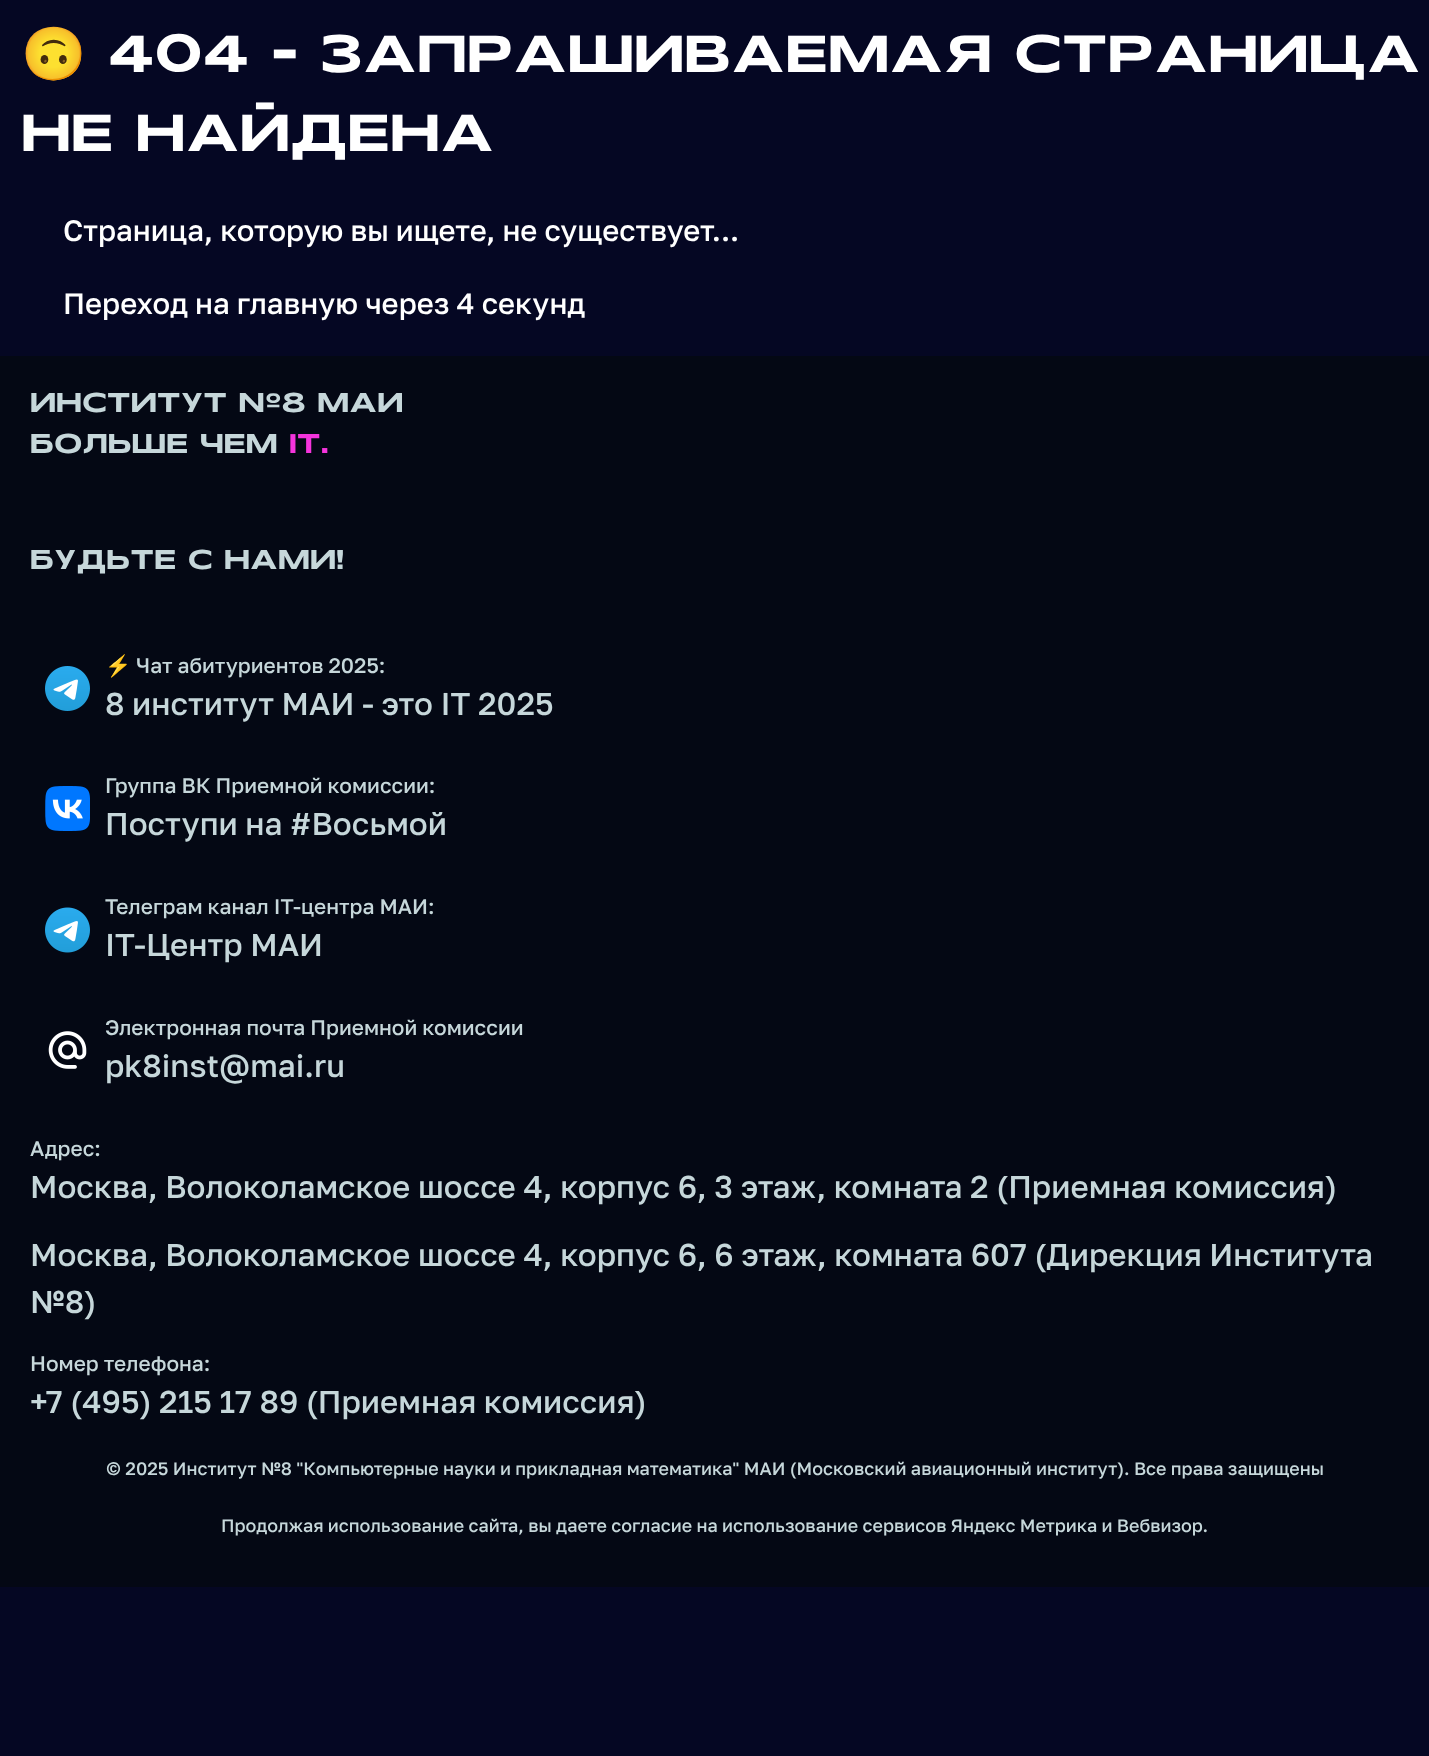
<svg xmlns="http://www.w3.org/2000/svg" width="1429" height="1756">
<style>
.a{font:bold 52.5px Noto Color Emoji;fill:#fff}
.b{font:52.5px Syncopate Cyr;fill:#fff}
.c{font:500 29.4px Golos;fill:#fff}
.d{font:27.25px Syncopate Cyr;fill:#c6d7da}
.e{font:27.25px Syncopate Cyr;fill:#f534dc}
.f{font:21px Noto Color Emoji;fill:#c6d7da}
.g{font:500 21px Golos;fill:#c6d7da}
.h{font:500 31.5px Golos;fill:#c6d7da}
.i{font:500 18px Golos;fill:#c6d7da}
</style>
<rect width="100%" height="100%" fill="#050723"/>
<path fill="#040814" d="M0 356h1429v1231H0z"/>
<image href="1.png" x="45" y="666" width="45" height="45"/>
<image href="2.png" x="45" y="786" width="45" height="45"/>
<image href="3.png" x="45" y="907" width="45" height="46"/>
<image href="4.png" x="48" y="1031" width="39" height="38"/>
<text class="a" x="21" y="72">🙃</text>
<text class="b" x="108" y="72">404 - ЗАПРАШИВАЕМАЯ СТРАНИЦА</text>
<text class="b" x="21" y="151">НЕ НАЙДЕНА</text>
<text class="c" x="63" y="241">Страница, которую вы ищете, не существует...</text>
<text class="c" x="63" y="314">Переход на главную через 4 секунд</text>
<text class="d" x="30" y="412">ИНСТИТУТ №8 МАИ</text>
<text class="d" x="30" y="453">БОЛЬШЕ ЧЕМ</text>
<text class="e" x="289" y="453">IT.</text>
<text class="d" x="30" y="569">БУДЬТЕ С НАМИ!</text>
<text class="f" x="105" y="673">⚡️</text>
<text class="g" x="136" y="673">Чат абитуриентов 2025:</text>
<text class="h" x="105" y="715">8 институт МАИ - это IT 2025</text>
<text class="g" x="105" y="793">Группа ВК Приемной комиссии:</text>
<text class="h" x="105" y="835">Поступи на #Восьмой</text>
<text class="g" x="105" y="914">Телеграм канал IT-центра МАИ:</text>
<text class="h" x="105" y="956">IT-Центр МАИ</text>
<text class="g" x="105" y="1035">Электронная почта Приемной комиссии</text>
<text class="h" x="105" y="1077">pk8inst@mai.ru</text>
<text class="g" x="30" y="1156">Адрес:</text>
<text class="h" x="30" y="1198">Москва, Волоколамское шоссе 4, корпус 6, 3 этаж, комната 2 (Приемная комиссия)</text>
<text class="h" x="30" y="1266">Москва, Волоколамское шоссе 4, корпус 6, 6 этаж, комната 607 (Дирекция Института</text>
<text class="h" x="30" y="1313">№8)</text>
<text class="g" x="30" y="1371">Номер телефона:</text>
<text class="h" x="30" y="1413">+7 (495) 215 17 89 (Приемная комиссия)</text>
<text class="i" x="106" y="1475">© 2025 Институт №8 "Компьютерные науки и прикладная математика" МАИ (Московский авиационный институт). Все права защищены</text>
<text class="i" x="221" y="1532">Продолжая использование сайта, вы даете согласие на использование сервисов Яндекс Метрика и Вебвизор.</text>
</svg>
